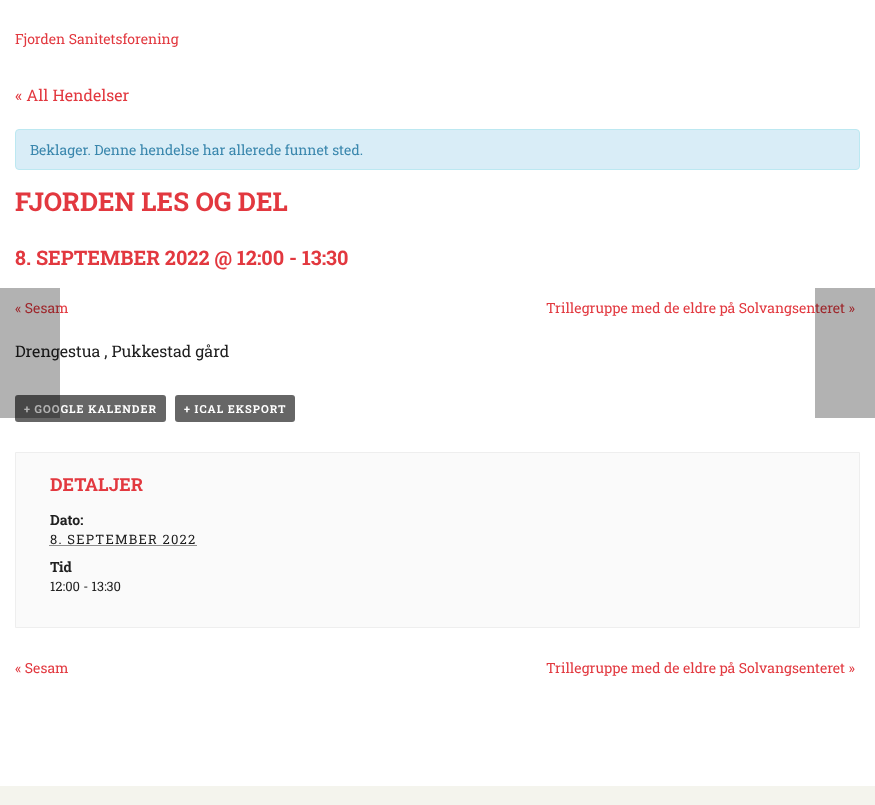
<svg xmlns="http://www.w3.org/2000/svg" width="875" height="805">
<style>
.a{font:14px Roboto Slab;fill:#e2383f}
.b{font:16px Roboto Slab;fill:#e2383f}
.c{font:14px Roboto Slab;fill:#3a87ad}
.d{font:bold 26px Roboto Slab;fill:#e2383f}
.e{font:bold 20px Roboto Slab;fill:#e2383f}
.f{font:16px Roboto Slab;fill:#202020}
.g{font:bold 11px Roboto Slab;letter-spacing:1px;fill:#fff}
.h{font:bold 18px Roboto Slab;fill:#e2383f}
.i{font:bold 14px Roboto Slab;fill:#202020}
.j{font:13px Roboto Slab;letter-spacing:1.25px;fill:#202020}
.k{font:13px Roboto Slab;fill:#202020}
</style>
<rect width="100%" height="100%" fill="#fff"/>
<rect fill="#d9edf7" stroke="#bce8f1" x="15.5" y="129.5" width="844" height="40" rx="3.5"/>
<rect fill="#666" x="15" y="395" width="151" height="27" rx="3"/>
<rect fill="#666" x="175" y="395" width="120" height="27" rx="3"/>
<path fill="#fafafa" stroke="#eee" d="M15.5 452.5h844v175H15.5z"/>
<path fill="none" stroke="#202020" stroke-dasharray="1 1" d="M49.5 545.5h147.5"/>
<path fill="#f4f4ed" d="M0 786h875v19H0z"/>
<text class="a" x="15" y="44">Fjorden Sanitetsforening</text>
<text class="b" x="15" y="101">« All Hendelser</text>
<text class="c" x="30" y="155">Beklager. Denne hendelse har allerede funnet sted.</text>
<text class="d" x="15" y="211">FJORDEN LES OG DEL</text>
<text class="e" x="15" y="265">8. SEPTEMBER 2022 @ 12:00 - 13:30</text>
<text class="a" x="15" y="313">« Sesam</text>
<text class="a" x="546" y="313">Trillegruppe med de eldre på Solvangsenteret »</text>
<text class="f" x="15" y="357">Drengestua , Pukkestad gård</text>
<text class="g" x="24" y="413">+ GOOGLE KALENDER</text>
<text class="g" x="184" y="413">+ ICAL EKSPORT</text>
<text class="h" x="50" y="491">DETALJER</text>
<text class="i" x="50" y="525">Dato:</text>
<text class="j" x="50" y="544">8. SEPTEMBER 2022</text>
<text class="i" x="50" y="572">Tid</text>
<text class="k" x="50" y="591">12:00 - 13:30</text>
<text class="a" x="15" y="673">« Sesam</text>
<text class="a" x="546" y="673">Trillegruppe med de eldre på Solvangsenteret »</text>
<path fill="#0000004d" d="M0 288h60v130H0z"/>
<path fill="#0000004d" d="M815 288h60v130H815z"/>
</svg>
